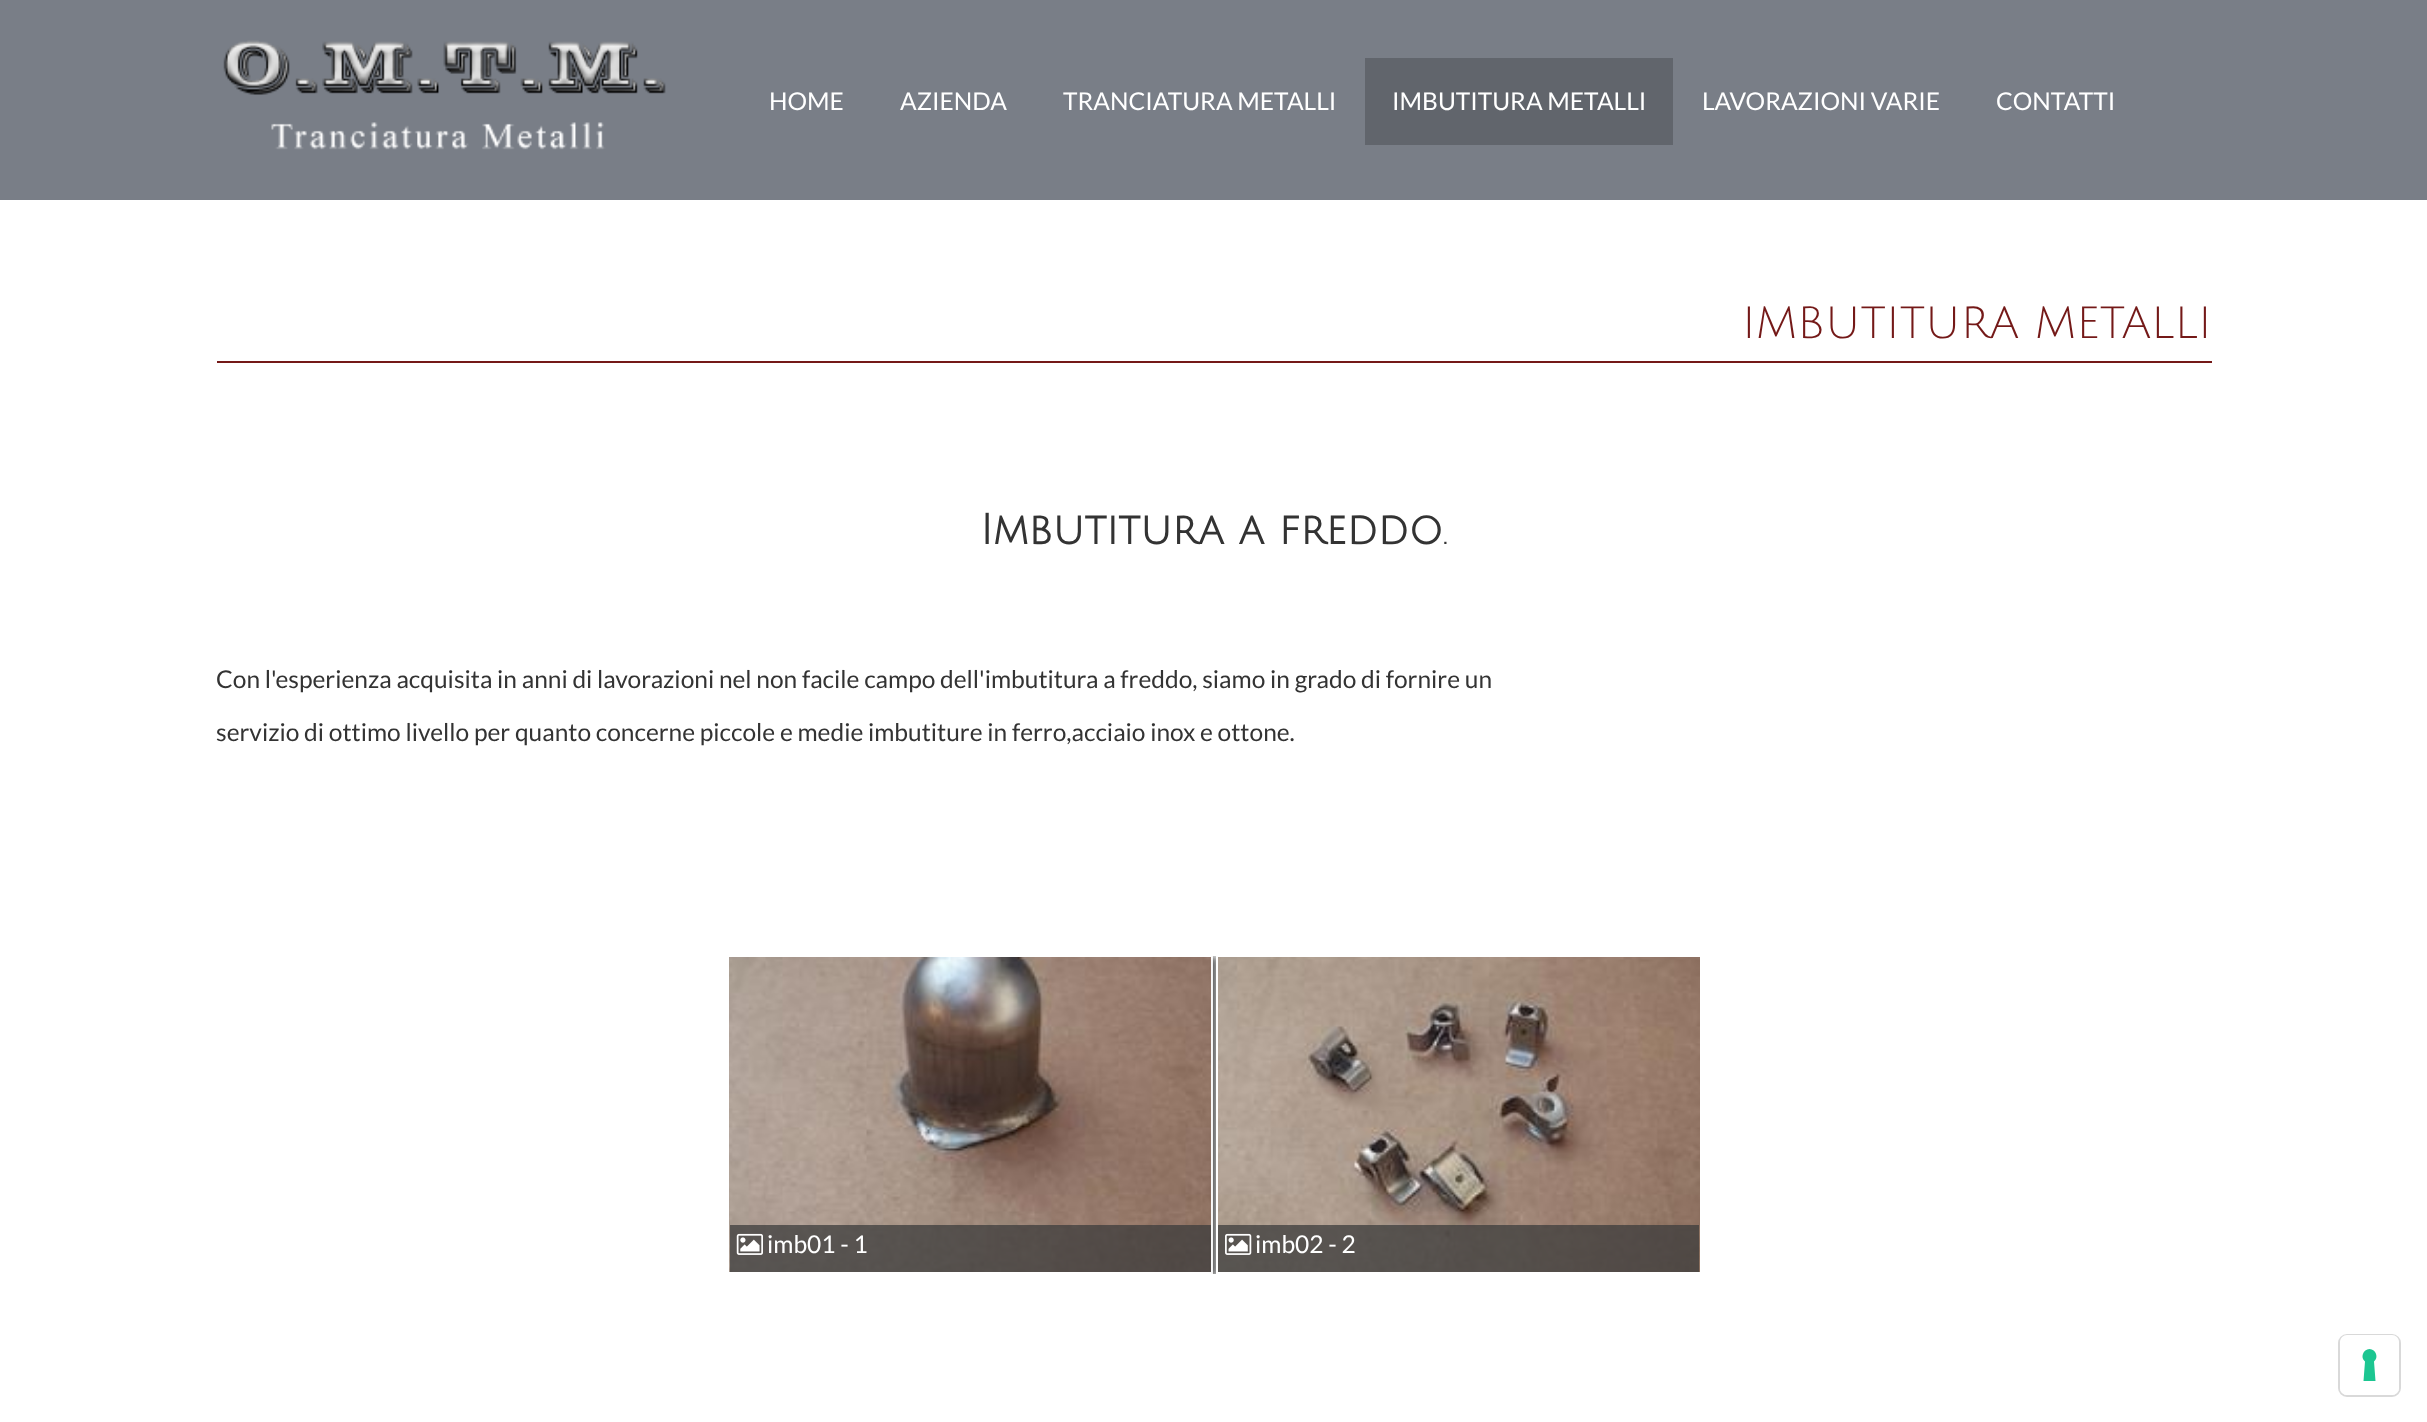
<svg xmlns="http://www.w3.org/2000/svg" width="2427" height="1422">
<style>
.a{font:24.5px Lato;fill:#fff}
.b{font:44.1px Julius Sans One;fill:#741918}
.c{font:bold 42px Julius Sans One;fill:#333}
.d{font:42px Julius Sans One;fill:#333}
.e{font:24.5px Lato;fill:#333}
</style>
<defs>
<clipPath id="clip1"><path d="M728 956h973v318H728z"/></clipPath>
</defs>
<rect width="100%" height="100%" fill="#fff"/>
<path fill="#797e87" d="M0 0h2427v200H0z"/>
<image href="1.png" x="223" y="40" width="443" height="110"/>
<path fill="#61656c" d="M1365 58h308v87H1365z"/>
<path fill="#741918" d="M217 361h1995v2H217z"/>
<g clip-path="url(#clip1)">
<path fill="#333" filter="blur(3.5px)" d="M730 957h485v319H730z"/>
</g>
<path fill="#fff" d="M728 956h485v318H728z"/>
<image href="2.png" x="729" y="957" width="482" height="315"/>
<path fill="#3c3c3cbf" d="M730 1225h481v47H730z"/>
<image href="3.png" x="736" y="1233" width="27" height="22"/>
<g clip-path="url(#clip1)">
<path fill="#333" filter="blur(3.5px)" d="M1218 957h485v319H1218z"/>
</g>
<path fill="#fff" d="M1216 956h485v318H1216z"/>
<image href="4.png" x="1218" y="957" width="482" height="315"/>
<path fill="#3c3c3cbf" d="M1218 1225h481v47H1218z"/>
<image href="5.png" x="1225" y="1233" width="27" height="22"/>
<rect fill="none" stroke="#d9d9d9" stroke-width="2" x="2339" y="1335" width="61" height="61" rx="8"/>
<rect fill="#fff" x="2340" y="1335" width="59" height="60" rx="7"/>
<path fill="#1cc691" fill-rule="evenodd" d="M2369.5 1349c6.5 .5 9.5 8.5 4.5 12.5l1.5 19.5h-12l1.5-19.5c-5-4-2-12 4.5-12.5z"/>
<text class="a" x="769" y="110">HOME</text>
<text class="a" x="900" y="110">AZIENDA</text>
<text class="a" x="1063" y="110">TRANCIATURA METALLI</text>
<text class="a" x="1392" y="110">IMBUTITURA METALLI</text>
<text class="a" x="1702" y="110">LAVORAZIONI VARIE</text>
<text class="a" x="1996" y="110">CONTATTI</text>
<text class="b" x="1742" y="338">IMBUTITURA METALLI</text>
<text class="c" x="980" y="544">Imbutitura a freddo</text>
<text class="d" x="1443" y="544">.</text>
<text class="e" x="216" y="688">Con l'esperienza acquisita in anni di lavorazioni nel non facile campo dell'imbutitura a freddo, siamo in grado di fornire un</text>
<text class="e" x="216" y="741">servizio di ottimo livello per quanto concerne piccole e medie imbutiture in ferro,acciaio inox e ottone.</text>
<text class="a" x="767" y="1253">imb01 - 1</text>
<text class="a" x="1255" y="1253">imb02 - 2</text>
</svg>
